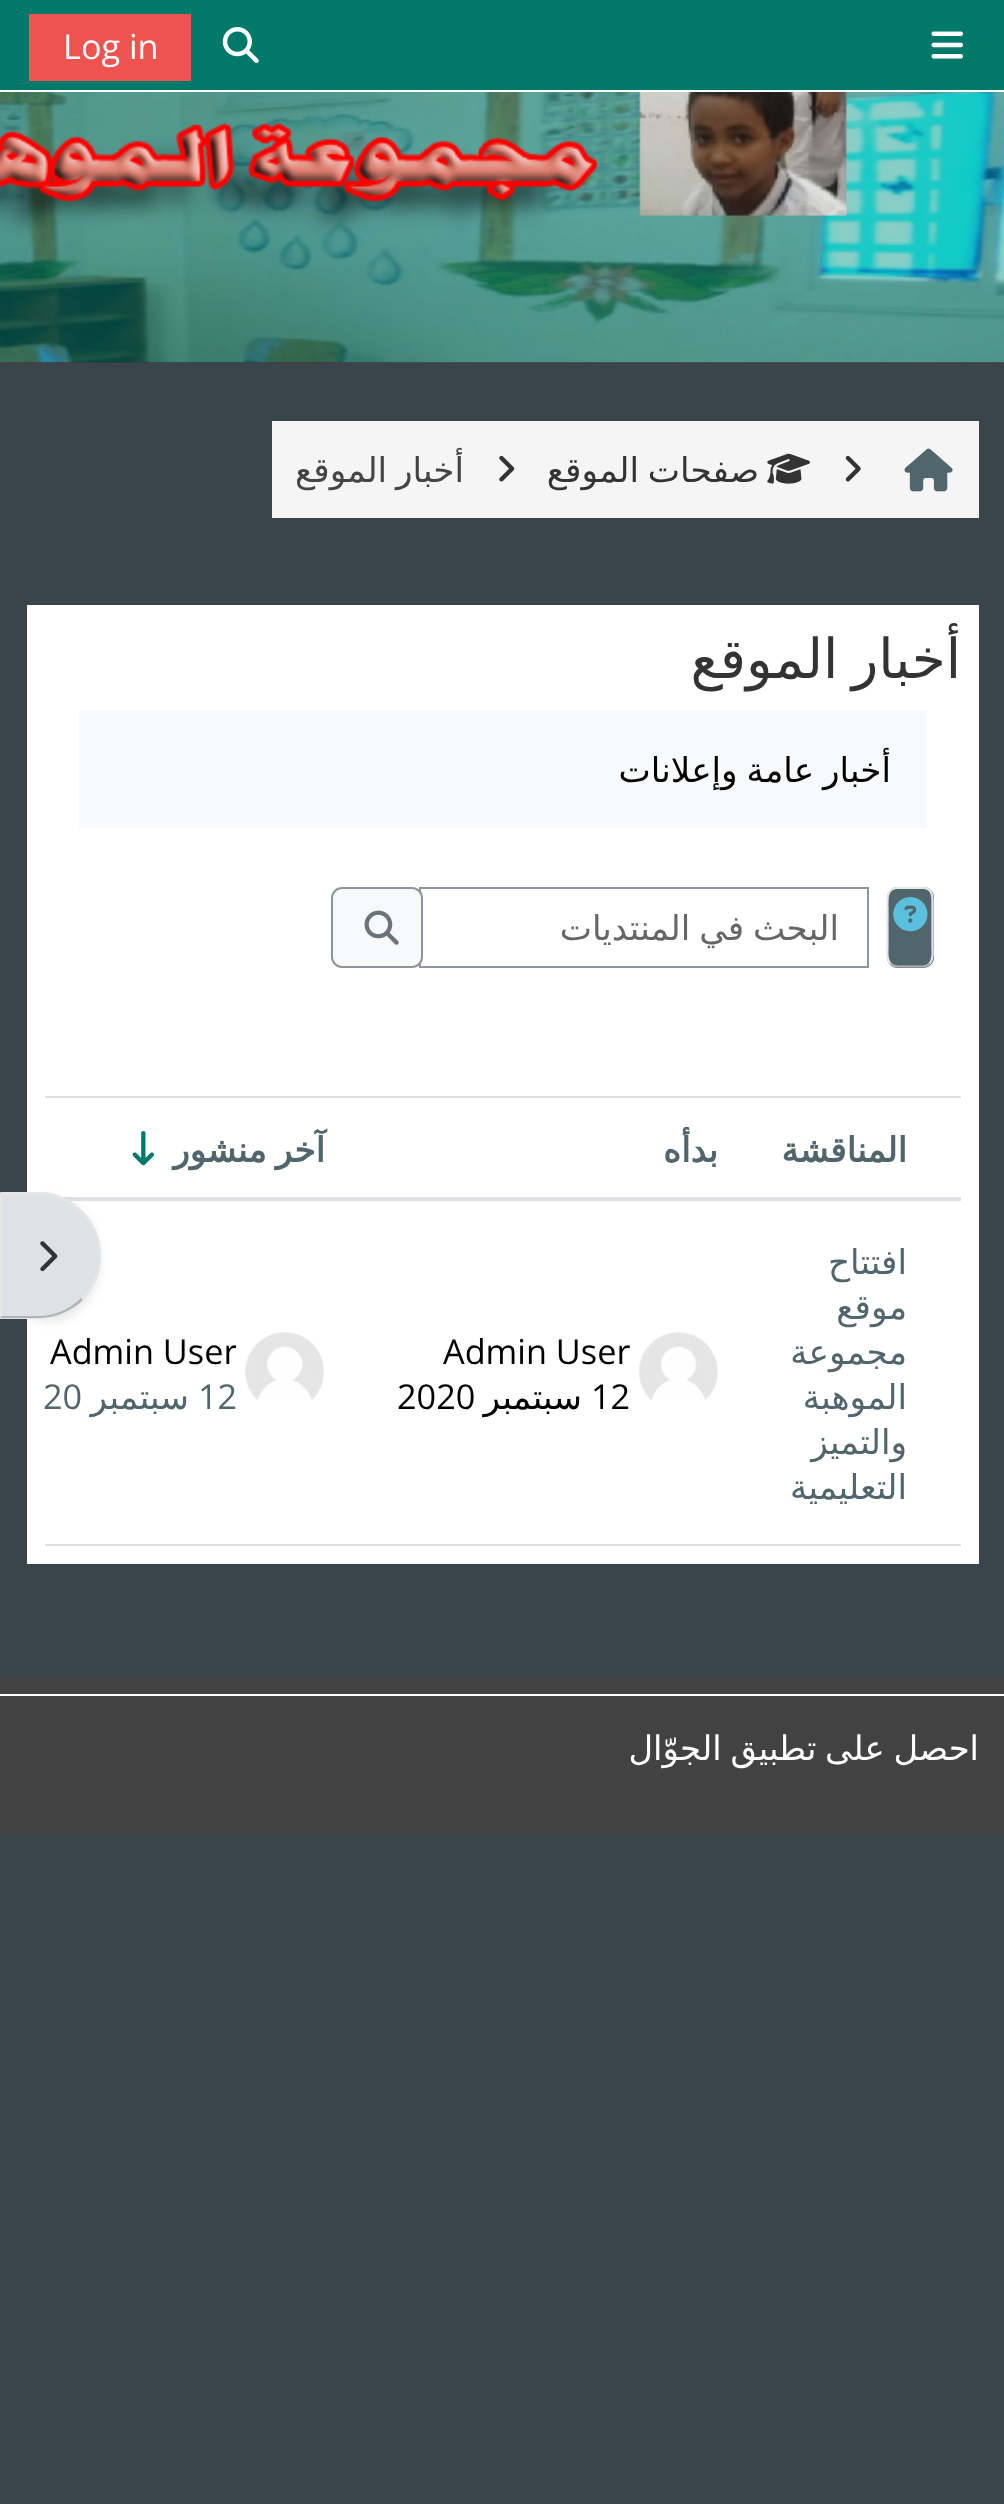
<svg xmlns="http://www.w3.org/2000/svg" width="1004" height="2504">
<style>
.a{font:34.25px Open Sans;fill:#fff}
.b{font:34.25px DejaVu Sans;direction:rtl;fill:#333}
.c{font:34.25px DejaVu Sans;direction:rtl;fill:#444}
.d{font:55px DejaVu Sans;direction:rtl;fill:#333}
.e{font:34.25px DejaVu Sans;direction:rtl;fill:#000}
.f{font:34.25px DejaVu Sans;direction:rtl;fill:#666}
.g{font:bold 34.25px DejaVu Sans;direction:rtl;fill:#51666c}
.h{font:34.25px DejaVu Sans;direction:rtl;fill:#51666c}
.i{font:34.25px Open Sans;fill:#000}
.j{font:34.25px Open Sans;fill:#51666c}
.k{font:33.9px DejaVu Sans;direction:rtl;fill:#fff}
</style>
<defs>
<clipPath id="clip1"><path d="M115 747h776v45H115z"/></clipPath>
<clipPath id="clip2"><path d="M448 905h391v45H448z"/></clipPath>
<clipPath id="clip3"><path d="M45 1332h191v36H45z"/></clipPath>
</defs>
<rect width="100%" height="100%" fill="#3a454b"/>
<path fill="#009688" d="M0 92h1004v270H0z"/>
<image href="1.png" x="0" y="92" width="1004" height="271"/>
<path fill="#00796b" d="M0 0h1004v90H0z"/>
<path fill="#fff" d="M0 90h1004v2H0z"/>
<image href="2.png" x="931" y="31" width="32" height="28"/>
<image href="3.png" x="222" y="27" width="37" height="36"/>
<path fill="#ef5350" d="M29 14h162v67H29z"/>
<path fill="#f5f5f5" d="M272 421h707v97H272z"/>
<image href="4.png" x="904" y="448" width="49" height="44"/>
<image href="5.png" x="845" y="455" width="16" height="27"/>
<image href="6.png" x="767" y="453" width="43" height="31"/>
<image href="7.png" x="499" y="455" width="16" height="27"/>
<path fill="#fff" d="M27 605h952v959H27z"/>
<path fill="#f8f9fa" d="M79 711h848v117H79z"/>
<rect fill="#51666c" x="887" y="887" width="47" height="81" rx="11"/>
<path fill="none" stroke="#b3b3b3" stroke-width="2.2" d="M929.5 963.5c-1.5 2-4.5 3-7 3h-24.5c-3 0-5.5-1-7.5-3"/>
<path fill="none" stroke="#e6e6e6" stroke-width="2.2" d="M890.5 963.5c-4.5-4.5-3-11.5-3-17v-39c0-7.5-1.5-18 8.5-19.5h28.5c9.5 1.5 8 12 8 19.5v39c0 5.5 1.5 12.5-3 17"/>
<image href="8.png" x="893" y="897" width="35" height="35"/>
<path fill="none" stroke="#8f959e" stroke-width="2" d="M420 888h448v79H420z"/>
<rect fill="#f8f9fa" stroke="#8f959e" stroke-width="2" x="332" y="888" width="90" height="79" rx="10"/>
<image href="9.png" x="364" y="910" width="35" height="35"/>
<path fill="#dee2e6" d="M45 1096h916v2H45z"/>
<path fill="#dee2e6" d="M62 1197h899v2H62z"/>
<image href="10.png" x="132" y="1131" width="22" height="35"/>
<image href="11.png" x="639" y="1332" width="79" height="68"/>
<path fill="#dee2e6" d="M67 1199h894v2H67z"/>
<path fill="#dee2e6" d="M45 1544h916v2H45z"/>
<image href="12.png" x="245" y="1332" width="79" height="68"/>
<rect fill="#00000012" filter="blur(4.5px)" y="1197" width="101" height="126" rx="63"/>
<path fill="#dee2e6" d="M0 1193h38c35 0 63 28 63 63c0 35-28 63-63 63h-38z"/>
<path fill="#e6e6e6" d="M0 1192h46c14 2 27 9 37 19l-2 2c-11-11-26-18-43-18h-36z"/>
<path fill="#e6e6e6" d="M83 1211c24 24 24 65 0 89l-2-2c24-23 24-62 0-85z"/>
<path fill="#b3b3b3" d="M83 1300c-12 11-28 18-45 18h-38l2-2h36c17 0 32-7 43-18z"/>
<path fill="#e6e6e6" d="M2 1195l-2-3v126l2-2z"/>
<image href="13.png" x="40" y="1241" width="18" height="31"/>
<path fill="#424242" d="M0 1676h1004v158H0z"/>
<path fill="#fff" d="M0 1694h1004v2H0z"/>
<text class="a" x="63" y="59">Log in</text>
<text class="b" x="759" y="482" word-spacing="-2">صفحات الموقع</text>
<text class="c" x="464" y="482" word-spacing="-2">أخبار الموقع</text>
<text class="d" x="961" y="678" word-spacing="-4">أخبار الموقع</text>
<g clip-path="url(#clip1)">
<text class="e" x="891" y="782" word-spacing="-2">أخبار عامة وإعلانات</text>
</g>
<g clip-path="url(#clip2)">
<text class="f" x="839" y="940" word-spacing="-2">البحث في المنتديات</text>
</g>
<text class="g" x="907" y="1162">المناقشة</text>
<text class="g" x="718" y="1162">بدأه</text>
<text class="g" x="325" y="1162" word-spacing="-2">آخر منشور</text>
<text class="h" x="907" y="1274">افتتاح</text>
<text class="h" x="907" y="1319">موقع</text>
<text class="h" x="907" y="1364">مجموعة</text>
<text class="h" x="907" y="1409">الموهبة</text>
<text class="h" x="907" y="1454">والتميز</text>
<text class="h" x="907" y="1499">التعليمية</text>
<text class="i" x="443" y="1364">Admin User</text>
<text class="i" x="591" y="1409">12</text>
<text class="e" x="582" y="1409">سبتمبر</text>
<text class="i" x="397" y="1409">2020</text>
<g clip-path="url(#clip3)">
<text class="i" x="50" y="1364">Admin User</text>
</g>
<text class="j" x="198" y="1409">12</text>
<text class="h" x="189" y="1409">سبتمبر</text>
<text class="j" x="43" y="1409">20</text>
<text class="k" x="979" y="1760" word-spacing="-2">احصل على تطبيق الجوّال</text>
</svg>
